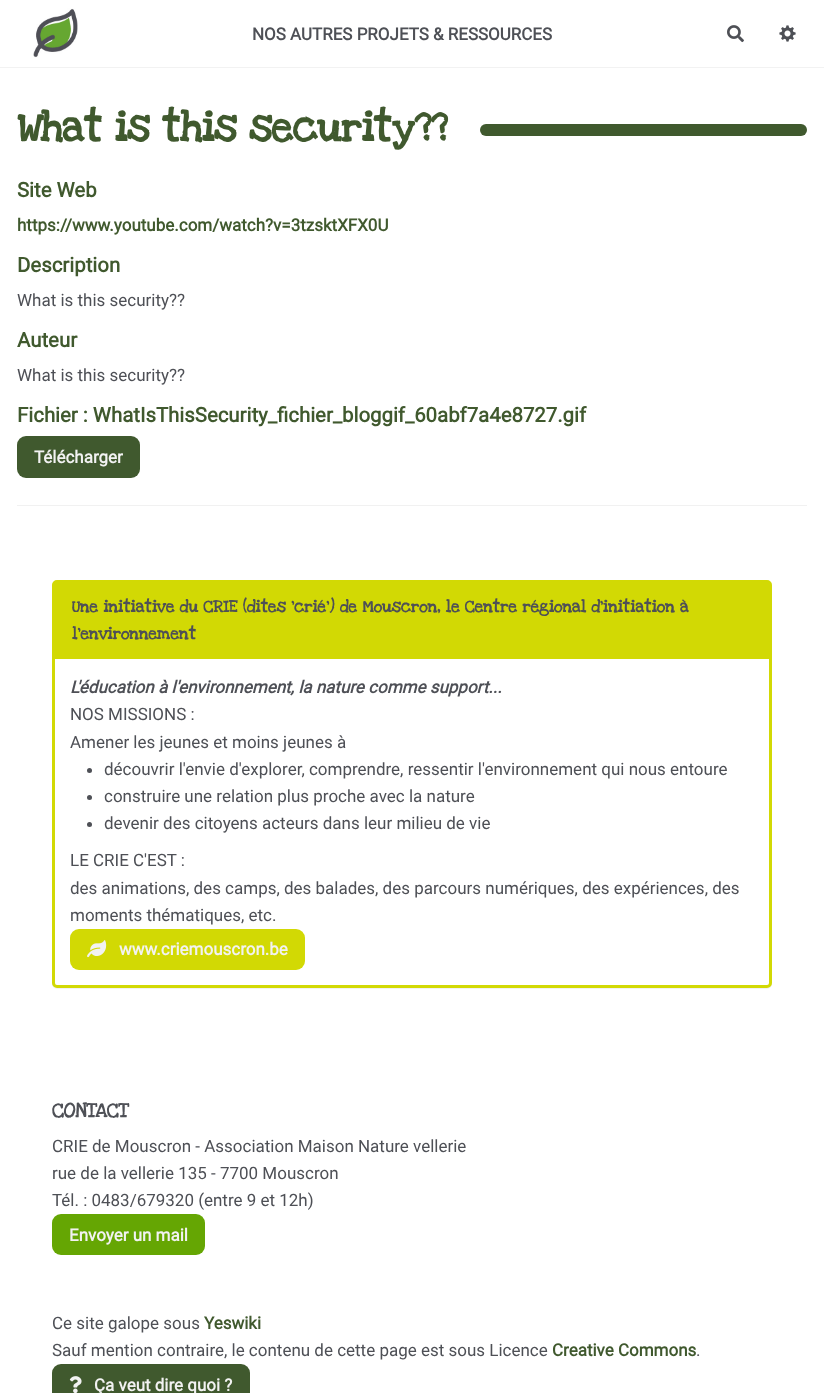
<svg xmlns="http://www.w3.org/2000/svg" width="824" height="1393">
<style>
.a{font:bold 17px Roboto;fill:#4e5056}
.b{font:bold 42.5px Love Ya Like A Sister;letter-spacing:-0.5px;fill:#40592e}
.c{font:bold 20.4px Roboto;fill:#40592e}
.d{font:bold 17px Roboto;fill:#40592e}
.e{font:17px Roboto;fill:#4e5056}
.f{font:bold 17px Roboto;fill:#f2f2f2}
.g{font:bold 17px Love Ya Like A Sister;fill:#4e5056}
.h{font:italic bold 17px Roboto;fill:#4e5056}
.i{font:bold 20.4px Love Ya Like A Sister;fill:#4e5056}
</style>
<rect width="100%" height="100%" fill="#fff"/>
<path fill="#f2f2f2" d="M0 67h824v1H0z"/>
<image href="1.png" x="33" y="8" width="45" height="50"/>
<image href="2.png" x="727" y="25" width="17" height="18"/>
<image href="3.png" x="779" y="25" width="17" height="17"/>
<rect fill="#40592e" x="480" y="124" width="327" height="12" rx="6"/>
<rect fill="#40592e" x="17" y="436" width="123" height="42" rx="9"/>
<path fill="#f1f1f1" d="M17 505h790v1H17z"/>
<rect fill="#0000000d" filter="blur(0.5px)" x="52" y="581" width="720" height="408" rx="5"/>
<rect fill="#fff" stroke="#d2d904" stroke-width="3" x="53.5" y="581.5" width="717" height="405" rx="3.5"/>
<path fill="#d2d904" d="M55 583h714v76H55z"/>
<circle fill="#4e5056" cx="89.5" cy="770.5" r="2.5"/>
<circle fill="#4e5056" cx="89.5" cy="797.5" r="2.5"/>
<circle fill="#4e5056" cx="89.5" cy="824.5" r="2.5"/>
<rect fill="#d2d904" x="70" y="929" width="235" height="41" rx="9"/>
<image href="4.png" x="87" y="940" width="20" height="18"/>
<rect fill="#65a603" x="52" y="1214" width="153" height="41" rx="9"/>
<rect fill="#40592e" x="52" y="1364" width="198" height="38" rx="9"/>
<image href="5.png" x="69" y="1376" width="13" height="17"/>
<text class="a" x="252" y="40">NOS AUTRES PROJETS &amp; RESSOURCES</text>
<text class="b" x="17" y="141">What is this security??</text>
<text class="c" x="17" y="197">Site Web</text>
<text class="d" x="17" y="231">https://www.youtube.com/watch?v=3tzsktXFX0U</text>
<text class="c" x="17" y="272">Description</text>
<text class="e" x="17" y="306">What is this security??</text>
<text class="c" x="17" y="347">Auteur</text>
<text class="e" x="17" y="381">What is this security??</text>
<text class="c" x="17" y="422">Fichier : WhatIsThisSecurity_fichier_bloggif_60abf7a4e8727.gif</text>
<text class="f" x="34" y="463">Télécharger</text>
<text class="g" x="72" y="612">Une initiative du CRIE (dites 'crié') de Mouscron, le Centre régional d'initiation à</text>
<text class="g" x="72" y="639">l'environnement</text>
<text class="h" x="70" y="693">L'éducation à l'environnement, la nature comme support...</text>
<text class="e" x="70" y="720">NOS MISSIONS :</text>
<text class="e" x="70" y="748">Amener les jeunes et moins jeunes à</text>
<text class="e" x="104" y="775">découvrir l'envie d'explorer, comprendre, ressentir l'environnement qui nous entoure</text>
<text class="e" x="104" y="802">construire une relation plus proche avec la nature</text>
<text class="e" x="104" y="829">devenir des citoyens acteurs dans leur milieu de vie</text>
<text class="e" x="70" y="866">LE CRIE C'EST :</text>
<text class="e" x="70" y="894">des animations, des camps, des balades, des parcours numériques, des expériences, des</text>
<text class="e" x="70" y="921">moments thématiques, etc.</text>
<text class="f" x="119" y="955">www.criemouscron.be</text>
<text class="i" x="52" y="1117">CONTACT</text>
<text class="e" x="52" y="1152">CRIE de Mouscron - Association Maison Nature vellerie</text>
<text class="e" x="52" y="1179">rue de la vellerie 135 - 7700 Mouscron</text>
<text class="e" x="52" y="1206">Tél. : 0483/679320 (entre 9 et 12h)</text>
<text class="f" x="69" y="1241">Envoyer un mail</text>
<text class="e" x="52" y="1329">Ce site galope sous</text>
<text class="d" x="204" y="1329">Yeswiki</text>
<text class="e" x="52" y="1356">Sauf mention contraire, le contenu de cette page est sous Licence</text>
<text class="d" x="552" y="1356">Creative Commons</text>
<text class="e" x="696" y="1356">.</text>
<text class="f" x="94" y="1391">Ça veut dire quoi ?</text>
</svg>
